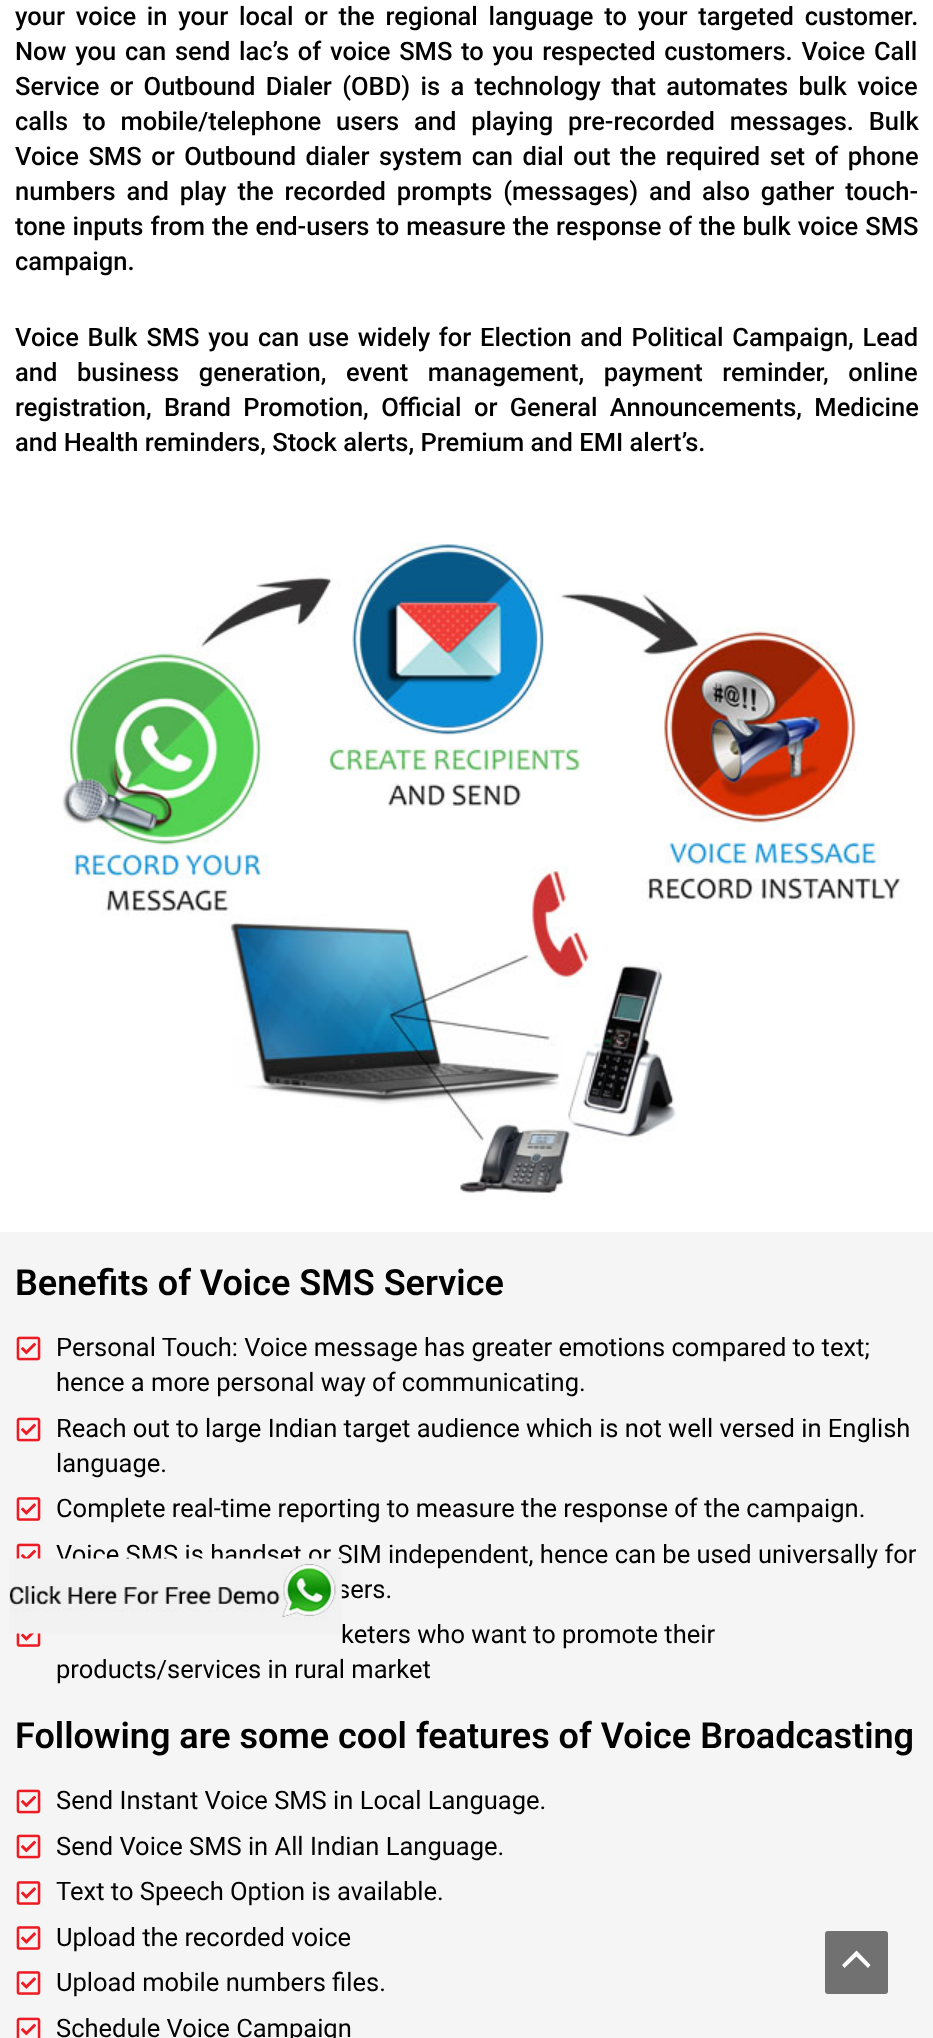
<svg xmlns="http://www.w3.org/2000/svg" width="933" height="2038">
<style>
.a{font:500 25.5px Roboto;fill:#000}
.b{font:600 36px Roboto;fill:#000}
.c{font:25.5px Roboto;fill:#000}
</style>
<rect width="100%" height="100%" fill="#fff"/>
<image href="1.png" x="62" y="543" width="842" height="657"/>
<path fill="#f5f5f5" d="M0 1232h933v806H0z"/>
<image href="2.png" x="16" y="1336" width="25" height="25"/>
<image href="2.png" x="16" y="1417" width="25" height="25"/>
<image href="3.png" x="16" y="1497" width="25" height="24"/>
<image href="4.png" x="16" y="1543" width="25" height="16"/>
<image href="5.png" x="16" y="1633" width="25" height="14"/>
<image href="2.png" x="16" y="1789" width="25" height="25"/>
<image href="2.png" x="16" y="1834" width="25" height="25"/>
<image href="3.png" x="16" y="1881" width="25" height="24"/>
<image href="3.png" x="16" y="1926" width="25" height="24"/>
<image href="3.png" x="16" y="1971" width="25" height="24"/>
<image href="6.png" x="16" y="2017" width="25" height="21"/>
<rect fill="#717171" x="825" y="1931" width="63" height="63" rx="3"/>
<path fill="#fff" d="M870.5 1965l-14-14.5l-14.5 14.5l2.5 3l12-11.5l11.5 11.5z"/>
<text class="a" x="15" y="25" word-spacing="4.4">your voice in your local or the regional language to your targeted customer.</text>
<text class="a" x="15" y="60" word-spacing="2.4">Now you can send lac’s of voice SMS to you respected customers. Voice Call</text>
<text class="a" x="15" y="95" word-spacing="4">Service or Outbound Dialer (OBD) is a technology that automates bulk voice</text>
<text class="a" x="15" y="130" word-spacing="8.5">calls to mobile/telephone users and playing pre-recorded messages. Bulk</text>
<text class="a" x="15" y="165" word-spacing="3.25">Voice SMS or Outbound dialer system can dial out the required set of phone</text>
<text class="a" x="15" y="200" word-spacing="4.5">numbers and play the recorded prompts (messages) and also gather touch-</text>
<text class="a" x="15" y="235" word-spacing="0.75">tone inputs from the end-users to measure the response of the bulk voice SMS</text>
<text class="a" x="15" y="270">campaign.</text>
<text class="a" x="15" y="346" word-spacing="2.4">Voice Bulk SMS you can use widely for Election and Political Campaign, Lead</text>
<text class="a" x="15" y="381" word-spacing="13.25">and business generation, event management, payment reminder, online</text>
<text class="a" x="15" y="416" word-spacing="6">registration, Brand Promotion, Official or General Announcements, Medicine</text>
<text class="a" x="15" y="451">and Health reminders, Stock alerts, Premium and EMI alert’s.</text>
<text class="b" x="15" y="1295">Benefits of Voice SMS Service</text>
<text class="c" x="56" y="1356">Personal Touch: Voice message has greater emotions compared to text;</text>
<text class="c" x="56" y="1391">hence a more personal way of communicating.</text>
<text class="c" x="56" y="1437">Reach out to large Indian target audience which is not well versed in English</text>
<text class="c" x="56" y="1472">language.</text>
<text class="c" x="56" y="1517">Complete real-time reporting to measure the response of the campaign.</text>
<text class="c" x="56" y="1563">Voice SMS is handset or SIM independent, hence can be used universally for</text>
<text class="c" x="337" y="1598">sers.</text>
<text class="c" x="341" y="1643">keters who want to promote their</text>
<text class="c" x="56" y="1678">products/services in rural market</text>
<text class="b" x="15" y="1748">Following are some cool features of Voice Broadcasting</text>
<text class="c" x="56" y="1809">Send Instant Voice SMS in Local Language.</text>
<text class="c" x="56" y="1855">Send Voice SMS in All Indian Language.</text>
<text class="c" x="56" y="1900">Text to Speech Option is available.</text>
<text class="c" x="56" y="1946">Upload the recorded voice</text>
<text class="c" x="56" y="1991">Upload mobile numbers files.</text>
<text class="c" x="56" y="2037">Schedule Voice Campaign</text>
<image href="7.png" x="9" y="1558" width="333" height="76"/>
</svg>
